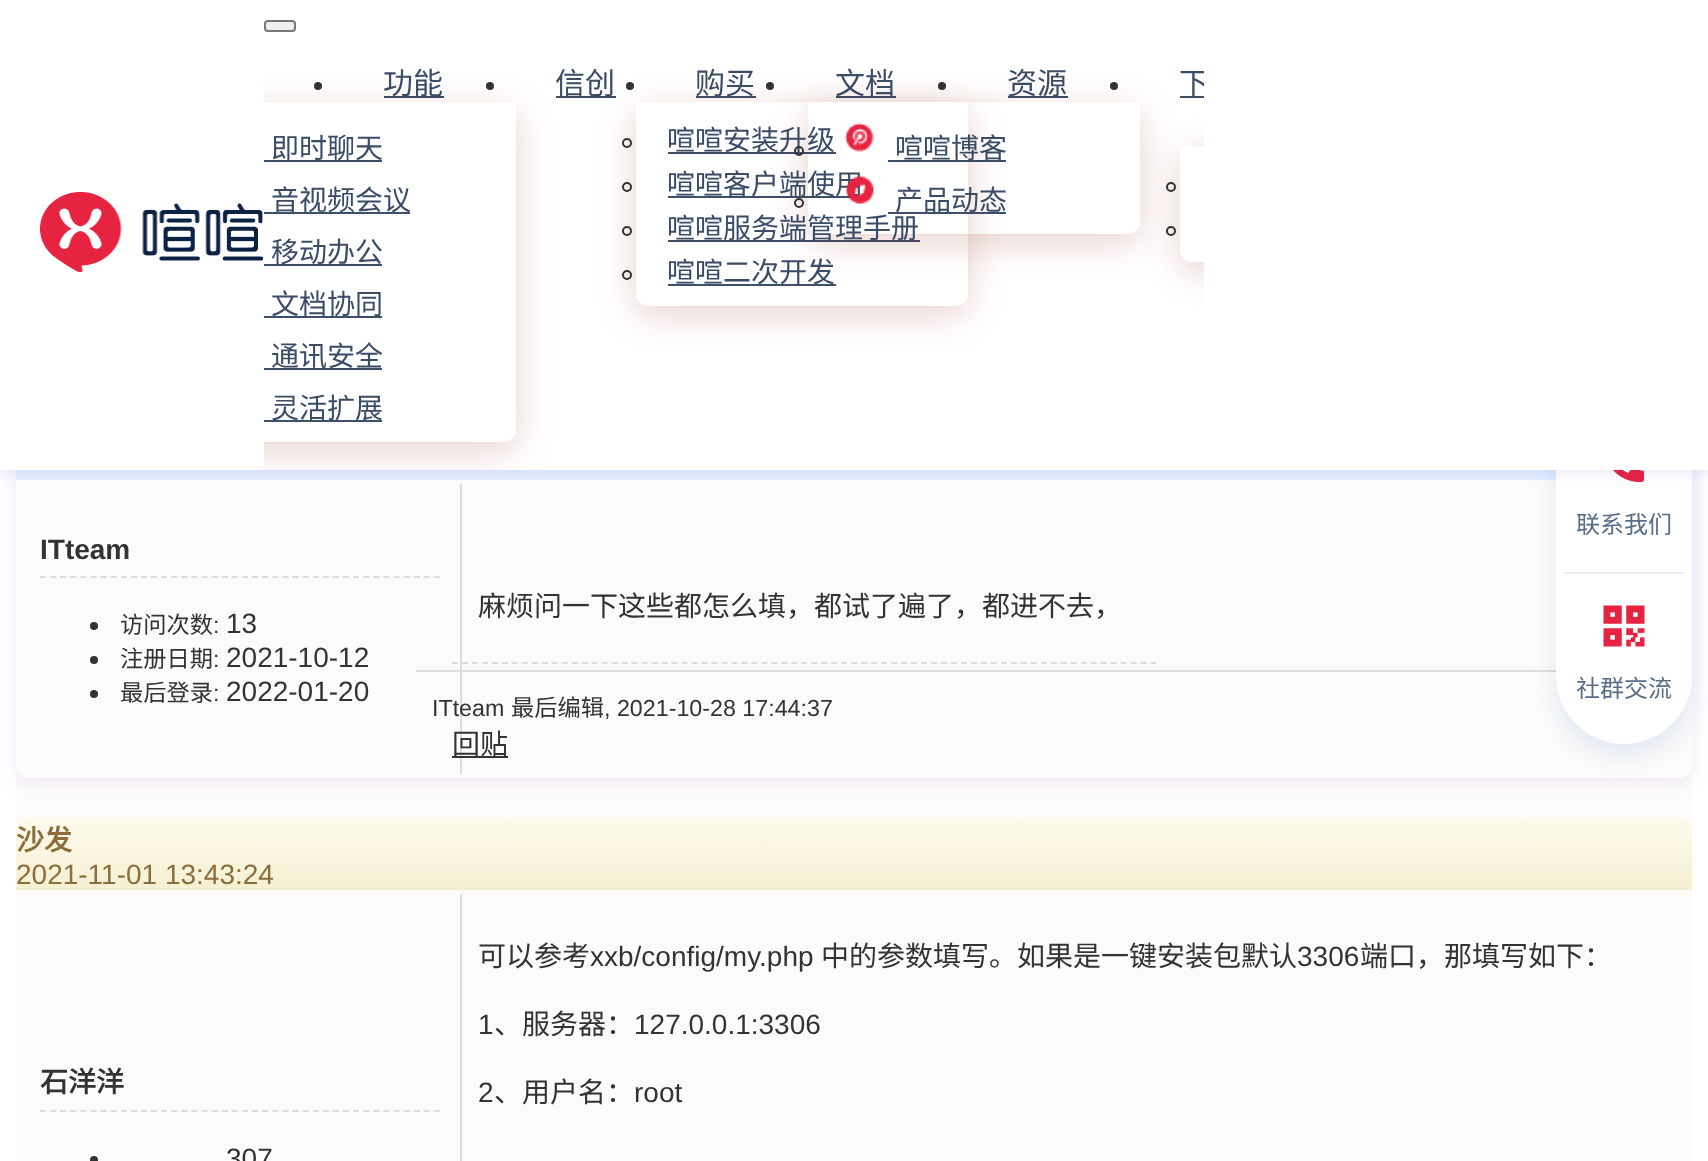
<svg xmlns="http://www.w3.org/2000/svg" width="1708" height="1161">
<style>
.a{font:30px Noto Sans CJK SC;fill:#3b4c67}
.b{font:28px Noto Sans CJK SC;fill:#3b4c67}
.c{font:bold 28px Liberation Sans;fill:#333}
.d{font:23.25px Noto Sans CJK SC;fill:#333}
.e{font:23.25px Liberation Sans;fill:#333}
.f{font:28px Liberation Sans;fill:#333}
.g{font:28px Noto Sans CJK SC;fill:#333}
.h{font:24px Noto Sans CJK SC;fill:#5a6d88}
.i{font:bold 28px Noto Sans CJK SC;fill:#8a6d3b}
.j{font:28px Liberation Sans;fill:#8a6d3b}
.k{font:bold 28px Noto Sans CJK SC;fill:#333}
</style>
<defs>
<clipPath id="clip1"><path d="M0 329h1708v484h-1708zm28 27h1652c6.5 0 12 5.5 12 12v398c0 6.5-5.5 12-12 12h-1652c-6.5 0-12-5.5-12-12v-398c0-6.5 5.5-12 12-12z" clip-rule="evenodd"/></clipPath>
<linearGradient id="g1" gradientUnits="userSpaceOnUse" x1="854" y1="356" x2="854" y2="480"><stop offset="0" stop-color="#f1f8ff"/><stop offset="1" stop-color="#e1f0ff"/></linearGradient>
<clipPath id="clip2"><path d="M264 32h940v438H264z"/></clipPath>
<clipPath id="clip3"><path d="M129 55h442v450h-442zm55 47h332v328c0 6.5-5.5 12-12 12h-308c-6.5 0-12-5.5-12-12z" clip-rule="evenodd"/></clipPath>
<clipPath id="clip4"><path d="M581 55h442v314h-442zm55 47h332v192c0 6.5-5.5 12-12 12h-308c-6.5 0-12-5.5-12-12z" clip-rule="evenodd"/></clipPath>
<clipPath id="clip5"><path d="M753 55h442v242h-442zm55 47h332v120c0 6.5-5.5 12-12 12h-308c-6.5 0-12-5.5-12-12z" clip-rule="evenodd"/></clipPath>
<clipPath id="clip6"><path d="M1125 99h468v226h-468zm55 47h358v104c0 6.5-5.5 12-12 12h-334c-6.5 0-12-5.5-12-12z" clip-rule="evenodd"/></clipPath>
<linearGradient id="g2" gradientUnits="userSpaceOnUse" x1="854" y1="818" x2="854" y2="890"><stop offset="0" stop-color="#fdfaeb"/><stop offset="1" stop-color="#f5f0d3"/></linearGradient>
<clipPath id="clip7"><path d="M264 32h940v438H264z"/></clipPath>
</defs>
<rect width="100%" height="100%" fill="#fff"/>
<path fill="#fdfbfa" d="M16 480h1676v681H16z"/>
<g clip-path="url(#clip1)">
<rect fill="#5d38c61a" filter="blur(10px)" x="16" y="360" width="1676" height="422" rx="12"/>
</g>
<path fill="url(#g1)" d="M16 470h1540v10H16z"/>
<path fill="#ddd" d="M460 484h2v290H460z"/>
<path fill="#ddd" d="M416 670h1140v2H416z"/>
<rect fill="#115fba1f" filter="blur(12px)" x="1556" y="414" width="136" height="342" rx="68"/>
<rect fill="#fff" x="1556" y="402" width="136" height="342" rx="68"/>
<image href="4.png" x="1613" y="470" width="31" height="12"/>
<path fill="#5d38c61a" filter="blur(6px)" d="M0 4h1708v470H0z"/>
<path fill="#fff" d="M0 0h1708v470H0z"/>
<image href="1.png" x="40" y="192" width="224" height="80"/>
<rect fill="#efefef" stroke="#767676" stroke-width="2" x="265" y="21" width="30" height="10" rx="3"/>
<g clip-path="url(#clip2)">
<g clip-path="url(#clip3)">
<rect fill="#8a170733" filter="blur(18px)" x="184" y="110" width="332" height="340" rx="12"/>
</g>
</g>
<circle fill="#333" cx="318" cy="86" r="4"/>
<path fill="#3b4c66" d="M384 96h60v2H384z"/>
<path fill="#3d4e69" d="M264 160h118v2H264z"/>
<path fill="#3d4e69" d="M264 212h146v2H264z"/>
<path fill="#3d4e69" d="M264 264h118v2H264z"/>
<path fill="#3d4e69" d="M264 316h118v2H264z"/>
<path fill="#3d4e69" d="M264 368h118v2H264z"/>
<path fill="#3d4e69" d="M264 420h118v2H264z"/>
<circle fill="#333" cx="490" cy="86" r="4"/>
<path fill="#3d4e69" d="M556 96h60v2H556z"/>
<circle fill="#333" cx="630" cy="86" r="4"/>
<path fill="#3d4e69" d="M696 96h60v2H696z"/>
<g clip-path="url(#clip4)">
<rect fill="#8a170733" filter="blur(18px)" x="636" y="110" width="332" height="204" rx="12"/>
</g>
<circle fill="#333" cx="770" cy="86" r="4"/>
<path fill="#3b4c66" d="M836 96h60v2H836z"/>
<circle fill="none" stroke="#333" stroke-width="2" cx="627" cy="143" r="4"/>
<path fill="#3d4e69" d="M668 152h168v2H668z"/>
<circle fill="none" stroke="#333" stroke-width="2" cx="627" cy="187" r="4"/>
<path fill="#3d4e69" d="M668 196h196v2H668z"/>
<circle fill="none" stroke="#333" stroke-width="2" cx="627" cy="231" r="4"/>
<path fill="#3d4e69" d="M668 240h252v2H668z"/>
<circle fill="none" stroke="#333" stroke-width="2" cx="627" cy="275" r="4"/>
<path fill="#3d4e69" d="M668 284h168v2H668z"/>
<g clip-path="url(#clip5)">
<rect fill="#8a170733" filter="blur(18px)" x="808" y="110" width="332" height="132" rx="12"/>
</g>
<circle fill="#333" cx="942" cy="86" r="4"/>
<path fill="#3b4c66" d="M1008 96h60v2H1008z"/>
<image href="2.png" x="844" y="122" width="30" height="30"/>
<path fill="#3d4e69" d="M888 160h6v2H888z"/>
<path fill="#0c2243cc" d="M894 160h112v2H894z"/>
<circle fill="none" stroke="#333" stroke-width="2" cx="799" cy="203" r="4"/>
<path fill="#3d4e69" d="M888 212h6v2H888z"/>
<path fill="#0c2243cc" d="M894 212h112v2H894z"/>
<circle fill="#333" cx="1114" cy="86" r="4"/>
<path fill="#3d4e69" d="M1180 96h24v2H1180z"/>
<g clip-path="url(#clip2)">
<g clip-path="url(#clip6)">
<rect fill="#8a170733" filter="blur(18px)" x="1180" y="154" width="358" height="116" rx="12"/>
</g>
</g>
<circle fill="none" stroke="#333" stroke-width="2" cx="1171" cy="187" r="4"/>
<circle fill="none" stroke="#333" stroke-width="2" cx="1171" cy="231" r="4"/>
<path fill="none" stroke="#ddd" stroke-width="2" stroke-dasharray="6 4.1" d="M40 577h400"/>
<circle fill="#333" cx="94" cy="626" r="4"/>
<circle fill="#333" cx="94" cy="660" r="4"/>
<circle fill="#333" cx="94" cy="694" r="4"/>
<path fill="none" stroke="#ddd" stroke-width="2" stroke-dasharray="6 3.98" d="M452 663h704"/>
<path fill="#333" d="M452 756h56v2H452z"/>
<path fill="#e6ecf8" d="M1564 572h120v2H1564z"/>
<image href="5.png" x="1603" y="605" width="42" height="42"/>
<path fill="url(#g2)" d="M28 818h1652c6.5 0 12 5.5 12 12v60h-1676v-60c0-6.5 5.5-12 12-12z"/>
<path fill="#ddd" d="M460 894h2v267H460z"/>
<path fill="none" stroke="#ddd" stroke-width="2" stroke-dasharray="6 4.1" d="M40 1111h400"/>
<circle fill="#333" cx="94" cy="1160" r="4"/>
<text class="a" x="383" y="94">功能</text>
<text class="b" x="271" y="158">即时聊天</text>
<text class="b" x="271" y="210">音视频会议</text>
<text class="b" x="271" y="262">移动办公</text>
<text class="b" x="271" y="314">文档协同</text>
<text class="b" x="271" y="366">通讯安全</text>
<text class="b" x="271" y="418">灵活扩展</text>
<text class="a" x="555" y="94">信创</text>
<text class="a" x="835" y="94">文档</text>
<text class="b" x="667" y="150">喧喧安装升级</text>
<text class="b" x="667" y="194">喧喧客户端使用</text>
<text class="b" x="667" y="238">喧喧服务端管理手册</text>
<text class="b" x="667" y="282">喧喧二次开发</text>
<text class="a" x="695" y="94">购买</text>
<text class="a" x="1007" y="94">资源</text>
<circle fill="none" stroke="#333" stroke-width="2" cx="799" cy="151" r="4"/>
<text class="b" x="895" y="158">喧喧博客</text>
<image href="3.png" x="846" y="176" width="28" height="28"/>
<text class="b" x="895" y="210">产品动态</text>
<g clip-path="url(#clip7)">
<text class="a" x="1179" y="94">下</text>
</g>
<text class="c" x="40" y="559">ITteam</text>
<text class="d" x="120" y="633">访问次数</text>
<text class="e" x="213" y="633">:</text>
<text class="f" x="226" y="633">13</text>
<text class="d" x="120" y="667">注册日期</text>
<text class="e" x="213" y="667">:</text>
<text class="f" x="226" y="667">2021-10-12</text>
<text class="d" x="120" y="701">最后登录</text>
<text class="e" x="213" y="701">:</text>
<text class="f" x="226" y="701">2022-01-20</text>
<text class="g" x="478" y="616">麻烦问一下这些都怎么填，都试了遍了，都进不去，</text>
<text class="e" x="432" y="716">ITteam</text>
<text class="d" x="511" y="716">最后编辑</text>
<text class="e" x="604" y="716">, 2021-10-28 17:44:37</text>
<text class="g" x="452" y="754">回贴</text>
<text class="h" x="1576" y="533">联系我们</text>
<text class="h" x="1576" y="697">社群交流</text>
<text class="i" x="16" y="850">沙发</text>
<text class="j" x="16" y="884">2021-11-01 13:43:24</text>
<text class="g" x="478" y="966">可以参考</text>
<text class="f" x="590" y="966">xxb/config/my.php</text>
<text class="g" x="821" y="966">中的参数填写。如果是一键安装包默认</text>
<text class="f" x="1297" y="966">3306</text>
<text class="g" x="1360" y="966">端口，那填写如下：</text>
<text class="f" x="478" y="1034">1</text>
<text class="g" x="494" y="1034">、服务器：</text>
<text class="f" x="634" y="1034">127.0.0.1:3306</text>
<text class="f" x="478" y="1102">2</text>
<text class="g" x="494" y="1102">、用户名：</text>
<text class="f" x="634" y="1102">root</text>
<text class="k" x="40" y="1092">石洋洋</text>
<text class="f" x="226" y="1168">307</text>
</svg>
